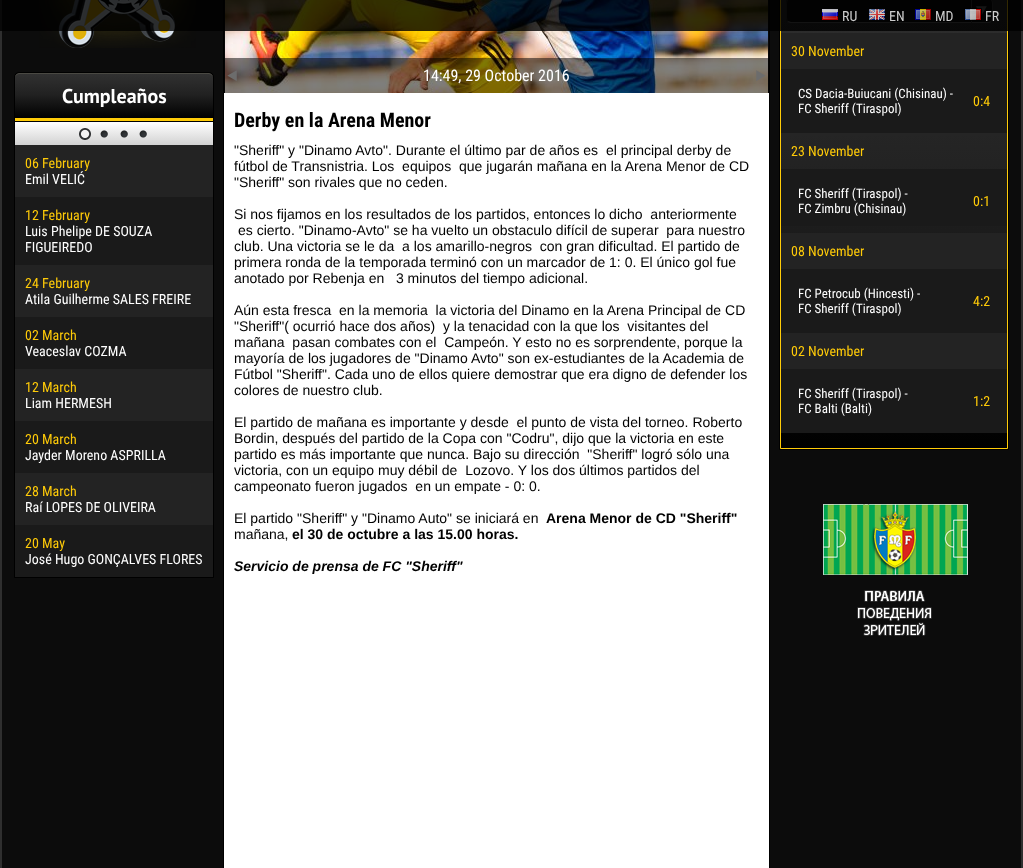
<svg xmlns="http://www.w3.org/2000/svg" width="1023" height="868">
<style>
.a{font:14px Roboto Condensed;fill:#cdcdcd}
.b{font:bold 20px PT Sans;fill:#fff}
.c{font:14px Roboto Condensed;fill:#ffcb08}
.d{font:14px Roboto Condensed;fill:#fff}
.e{font:16px Roboto Condensed;fill:#fff}
.f{font:bold 20px Roboto Condensed;fill:#000}
.g{font:14px Liberation Sans;fill:#000}
.h{font:bold 14px Liberation Sans;fill:#000}
.i{font:italic bold 14px Liberation Sans;fill:#000}
.j{font:13px Roboto Condensed;fill:#fff}
</style>
<defs>
<linearGradient id="g1" gradientUnits="userSpaceOnUse" x1="894" y1="-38" x2="894" y2="449"><stop offset="0" stop-color="#313131"/><stop offset="0.47" stop-color="#212121"/><stop offset="1" stop-color="#000"/></linearGradient>
<clipPath id="clip1"><path d="M20 73h188c3 0 5 2 5 5v43h-198v-43c0-3 2-5 5-5z"/></clipPath>
<linearGradient id="g2" gradientUnits="userSpaceOnUse" x1="114" y1="74" x2="114" y2="118"><stop offset="0" stop-color="#313131"/><stop offset="0.47" stop-color="#212121"/><stop offset="1" stop-color="#000"/></linearGradient>
<linearGradient id="g3" gradientUnits="userSpaceOnUse" x1="114" y1="122" x2="114" y2="145"><stop offset="0" stop-color="#fff"/><stop offset="1" stop-color="#d2d2d2"/></linearGradient>
</defs>
<rect width="100%" height="100%" fill="#2f2f2f"/>
<path fill="#0c0c0c" d="M2 0h1019v868H2z"/>
<image href="5.png" x="39" y="0" width="157" height="48"/>
<path fill="#080808" d="M224 0h545v93H224z"/>
<path fill="none" stroke="#000" d="M223.5 -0.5h546v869H223.5z"/>
<image href="8.png" x="225" y="0" width="543" height="93"/>
<path fill="url(#g1)" d="M781 0h226v448H781z"/>
<path fill="none" stroke="#000" d="M779.5 -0.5h229v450H779.5z"/>
<path fill="none" stroke="#ffcc08" d="M780.5 -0.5h227v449H780.5z"/>
<path fill="#0e0e0e" d="M791-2h181v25h-181c-3 0-5-2-5-5v-15c0-3 2-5 5-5z"/>
<path fill="#616161" d="M972 23l-1-1h-180l-3-1l-1 1l3 1z"/>
<path fill="#292929" d="M786 4.5c0-2 .5-4 1.5-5l.5 .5c-.5 1-1 2-1 3v15c0 1 .5 2 1 3l-.5 .5c-1-.5-1.5-1.5-1.5-2.5z"/>
<path fill="#0e0e0e" d="M971-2h17c3 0 5 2 5 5v15c0 3-2 5-5 5h-17z"/>
<path fill="#3c3c3c" d="M993 18v-15c0-1.5-.5-3-1.5-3.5l-.5 .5c.5 1 1 2 1 3v15c0 1-.5 2-1 3l.5 .5c1-.5 1.5-2 1.5-3.5z"/>
<path fill="#616161" d="M988 23c1.5 0 3-.5 3.5-1.5l-.5-.5c-1 .5-2 1-3 1h-16l-1 1z"/>
<path fill="#3c3c3c" d="M972-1l-1-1v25l1-1z"/>
<image href="11.png" x="976" y="6" width="11" height="10"/>
<path fill="#000000cc" d="M0 0h1023v31H0z"/>
<image href="1.png" x="822" y="9" width="16" height="11"/>
<image href="2.png" x="869" y="9" width="16" height="11"/>
<image href="3.png" x="915" y="9" width="16" height="11"/>
<path fill="none" stroke="#000000cc" d="M964.5 8.5h17v12H964.5z"/>
<image href="4.png" x="965" y="9" width="16" height="11"/>
<path fill="#080808" stroke="#000" d="M19 72.5h190c2.5 0 4.5 2 4.5 4.5v500.5h-199v-500.5c0-2.5 2-4.5 4.5-4.5z"/>
<g clip-path="url(#clip1)">
<path fill="url(#g2)" d="M15 74h198v44H15z"/>
</g>
<path fill="#4a4943" d="M20 73h188c3 0 5 2 5 5c0-2-2-4-5-4h-188c-3 0-5 2-5 4c0-3 2-5 5-5z"/>
<path fill="#ffcb08" d="M15 118h198v3H15z"/>
<path fill="url(#g3)" d="M15 122h198v23H15z"/>
<path fill="#000" d="M15 121h198v1H15z"/>
<image href="6.png" x="79" y="128" width="12" height="12"/>
<image href="7.png" x="100" y="130" width="8" height="8"/>
<image href="7.png" x="120" y="130" width="8" height="8"/>
<image href="7.png" x="139" y="130" width="8" height="8"/>
<path fill="#232323" d="M15 145h198v52H15z"/>
<path fill="#1a1a1a" d="M15 197h198v68H15z"/>
<path fill="#232323" d="M15 265h198v52H15z"/>
<path fill="#1a1a1a" d="M15 317h198v52H15z"/>
<path fill="#232323" d="M15 369h198v52H15z"/>
<path fill="#1a1a1a" d="M15 421h198v52H15z"/>
<path fill="#232323" d="M15 473h198v52H15z"/>
<path fill="#1a1a1a" d="M15 525h198v52H15z"/>
<path fill="#00000080" d="M224 58h545v35H224z"/>
<image href="9.png" x="227" y="70" width="10" height="11"/>
<image href="10.png" x="756" y="70" width="10" height="11"/>
<path fill="#fff" d="M224 93h545v775H224z"/>
<path fill="#232323" d="M781 33h226v36H781z"/>
<path fill="#1a1a1a" d="M781 69h226v64H781z"/>
<path fill="#1a1a1a" d="M781 169h226v57H781z"/>
<path fill="#232323" d="M781 233h226v36H781z"/>
<path fill="#1a1a1a" d="M781 269h226v64H781z"/>
<path fill="#232323" d="M781 333h226v36H781z"/>
<path fill="#1a1a1a" d="M781 369h226v64H781z"/>
<image href="12.png" x="823" y="504" width="145" height="132"/>
<text class="a" x="842" y="21">RU</text>
<text class="a" x="889" y="21">EN</text>
<text class="a" x="935" y="21">MD</text>
<text class="a" x="985" y="21">FR</text>
<text class="b" x="62" y="103">Cumpleaños</text>
<text class="c" x="25" y="168">06 February</text>
<text class="d" x="25" y="184">Emil VELIĆ</text>
<text class="c" x="25" y="220">12 February</text>
<text class="d" x="25" y="236">Luis Phelipe DE SOUZA</text>
<text class="d" x="25" y="252">FIGUEIREDO</text>
<text class="c" x="25" y="288">24 February</text>
<text class="d" x="25" y="304">Atila Guilherme SALES FREIRE</text>
<text class="c" x="25" y="340">02 March</text>
<text class="d" x="25" y="356">Veaceslav COZMA</text>
<text class="c" x="25" y="392">12 March</text>
<text class="d" x="25" y="408">Liam HERMESH</text>
<text class="c" x="25" y="444">20 March</text>
<text class="d" x="25" y="460">Jayder Moreno ASPRILLA</text>
<text class="c" x="25" y="496">28 March</text>
<text class="d" x="25" y="512">Raí LOPES DE OLIVEIRA</text>
<text class="c" x="25" y="548">20 May</text>
<text class="d" x="25" y="564">José Hugo GONÇALVES FLORES</text>
<text class="e" x="423" y="81">14:49, 29 October 2016</text>
<text class="f" x="234" y="127">Derby en la Arena Menor</text>
<text class="g" xml:space="preserve" x="234" y="155">"Sheriff" y "Dinamo Avto". Durante el último par de años es  el principal derby de</text>
<text class="g" xml:space="preserve" x="234" y="171">fútbol de Transnistria. Los  equipos  que jugarán mañana en la Arena Menor de CD</text>
<text class="g" x="234" y="187">"Sheriff" son rivales que no ceden.</text>
<text class="g" xml:space="preserve" x="234" y="219">Si nos fijamos en los resultados de los partidos, entonces lo dicho  anteriormente</text>
<text class="g" xml:space="preserve" x="238" y="235">es cierto. "Dinamo-Avto" se ha vuelto un obstaculo difícil de superar  para nuestro</text>
<text class="g" xml:space="preserve" x="234" y="251">club. Una victoria se le da  a los amarillo-negros  con gran dificultad. El partido de</text>
<text class="g" x="234" y="267">primera ronda de la temporada terminó con un marcador de 1: 0. El único gol fue</text>
<text class="g" xml:space="preserve" x="234" y="283">anotado por Rebenja en   3 minutos del tiempo adicional.</text>
<text class="g" xml:space="preserve" x="234" y="315">Aún esta fresca  en la memoria  la victoria del Dinamo en la Arena Principal de CD</text>
<text class="g" xml:space="preserve" x="234" y="331">"Sheriff"( ocurrió hace dos años)  y la tenacidad con la que los  visitantes del</text>
<text class="g" xml:space="preserve" x="234" y="347">mañana  pasan combates con el  Campeón. Y esto no es sorprendente, porque la</text>
<text class="g" x="234" y="363">mayoría de los jugadores de "Dinamo Avto" son ex-estudiantes de la Academia de</text>
<text class="g" x="234" y="379">Fútbol "Sheriff". Cada uno de ellos quiere demostrar que era digno de defender los</text>
<text class="g" x="234" y="395">colores de nuestro club.</text>
<text class="g" xml:space="preserve" x="234" y="427">El partido de mañana es importante y desde  el punto de vista del torneo. Roberto</text>
<text class="g" x="234" y="443">Bordin, después del partido de la Copa con "Codru", dijo que la victoria en este</text>
<text class="g" xml:space="preserve" x="234" y="459">partido es más importante que nunca. Bajo su dirección  "Sheriff" logró sólo una</text>
<text class="g" xml:space="preserve" x="234" y="475">victoria, con un equipo muy débil de  Lozovo. Y los dos últimos partidos del</text>
<text class="g" xml:space="preserve" x="234" y="491">campeonato fueron jugados  en un empate - 0: 0.</text>
<text class="g" x="234" y="523">El partido "Sheriff" y "Dinamo Auto" se iniciará en</text>
<text class="h" x="546" y="523">Arena Menor de CD "Sheriff"</text>
<text class="g" x="234" y="539">mañana,</text>
<text class="h" x="292" y="539">el 30 de octubre a las 15.00 horas.</text>
<text class="i" x="234" y="571">Servicio de prensa de FC "Sheriff"</text>
<text class="c" x="791" y="56">30 November</text>
<text class="j" x="798" y="98">CS Dacia-Buiucani (Chisinau) -</text>
<text class="j" x="798" y="113">FC Sheriff (Tiraspol)</text>
<text class="c" x="973" y="106">0:4</text>
<text class="c" x="791" y="156">23 November</text>
<text class="j" x="798" y="198">FC Sheriff (Tiraspol) -</text>
<text class="j" x="798" y="213">FC Zimbru (Chisinau)</text>
<text class="c" x="973" y="206">0:1</text>
<text class="c" x="791" y="256">08 November</text>
<text class="j" x="798" y="298">FC Petrocub (Hincesti) -</text>
<text class="j" x="798" y="313">FC Sheriff (Tiraspol)</text>
<text class="c" x="973" y="306">4:2</text>
<text class="c" x="791" y="356">02 November</text>
<text class="j" x="798" y="398">FC Sheriff (Tiraspol) -</text>
<text class="j" x="798" y="413">FC Balti (Balti)</text>
<text class="c" x="973" y="406">1:2</text>
</svg>
